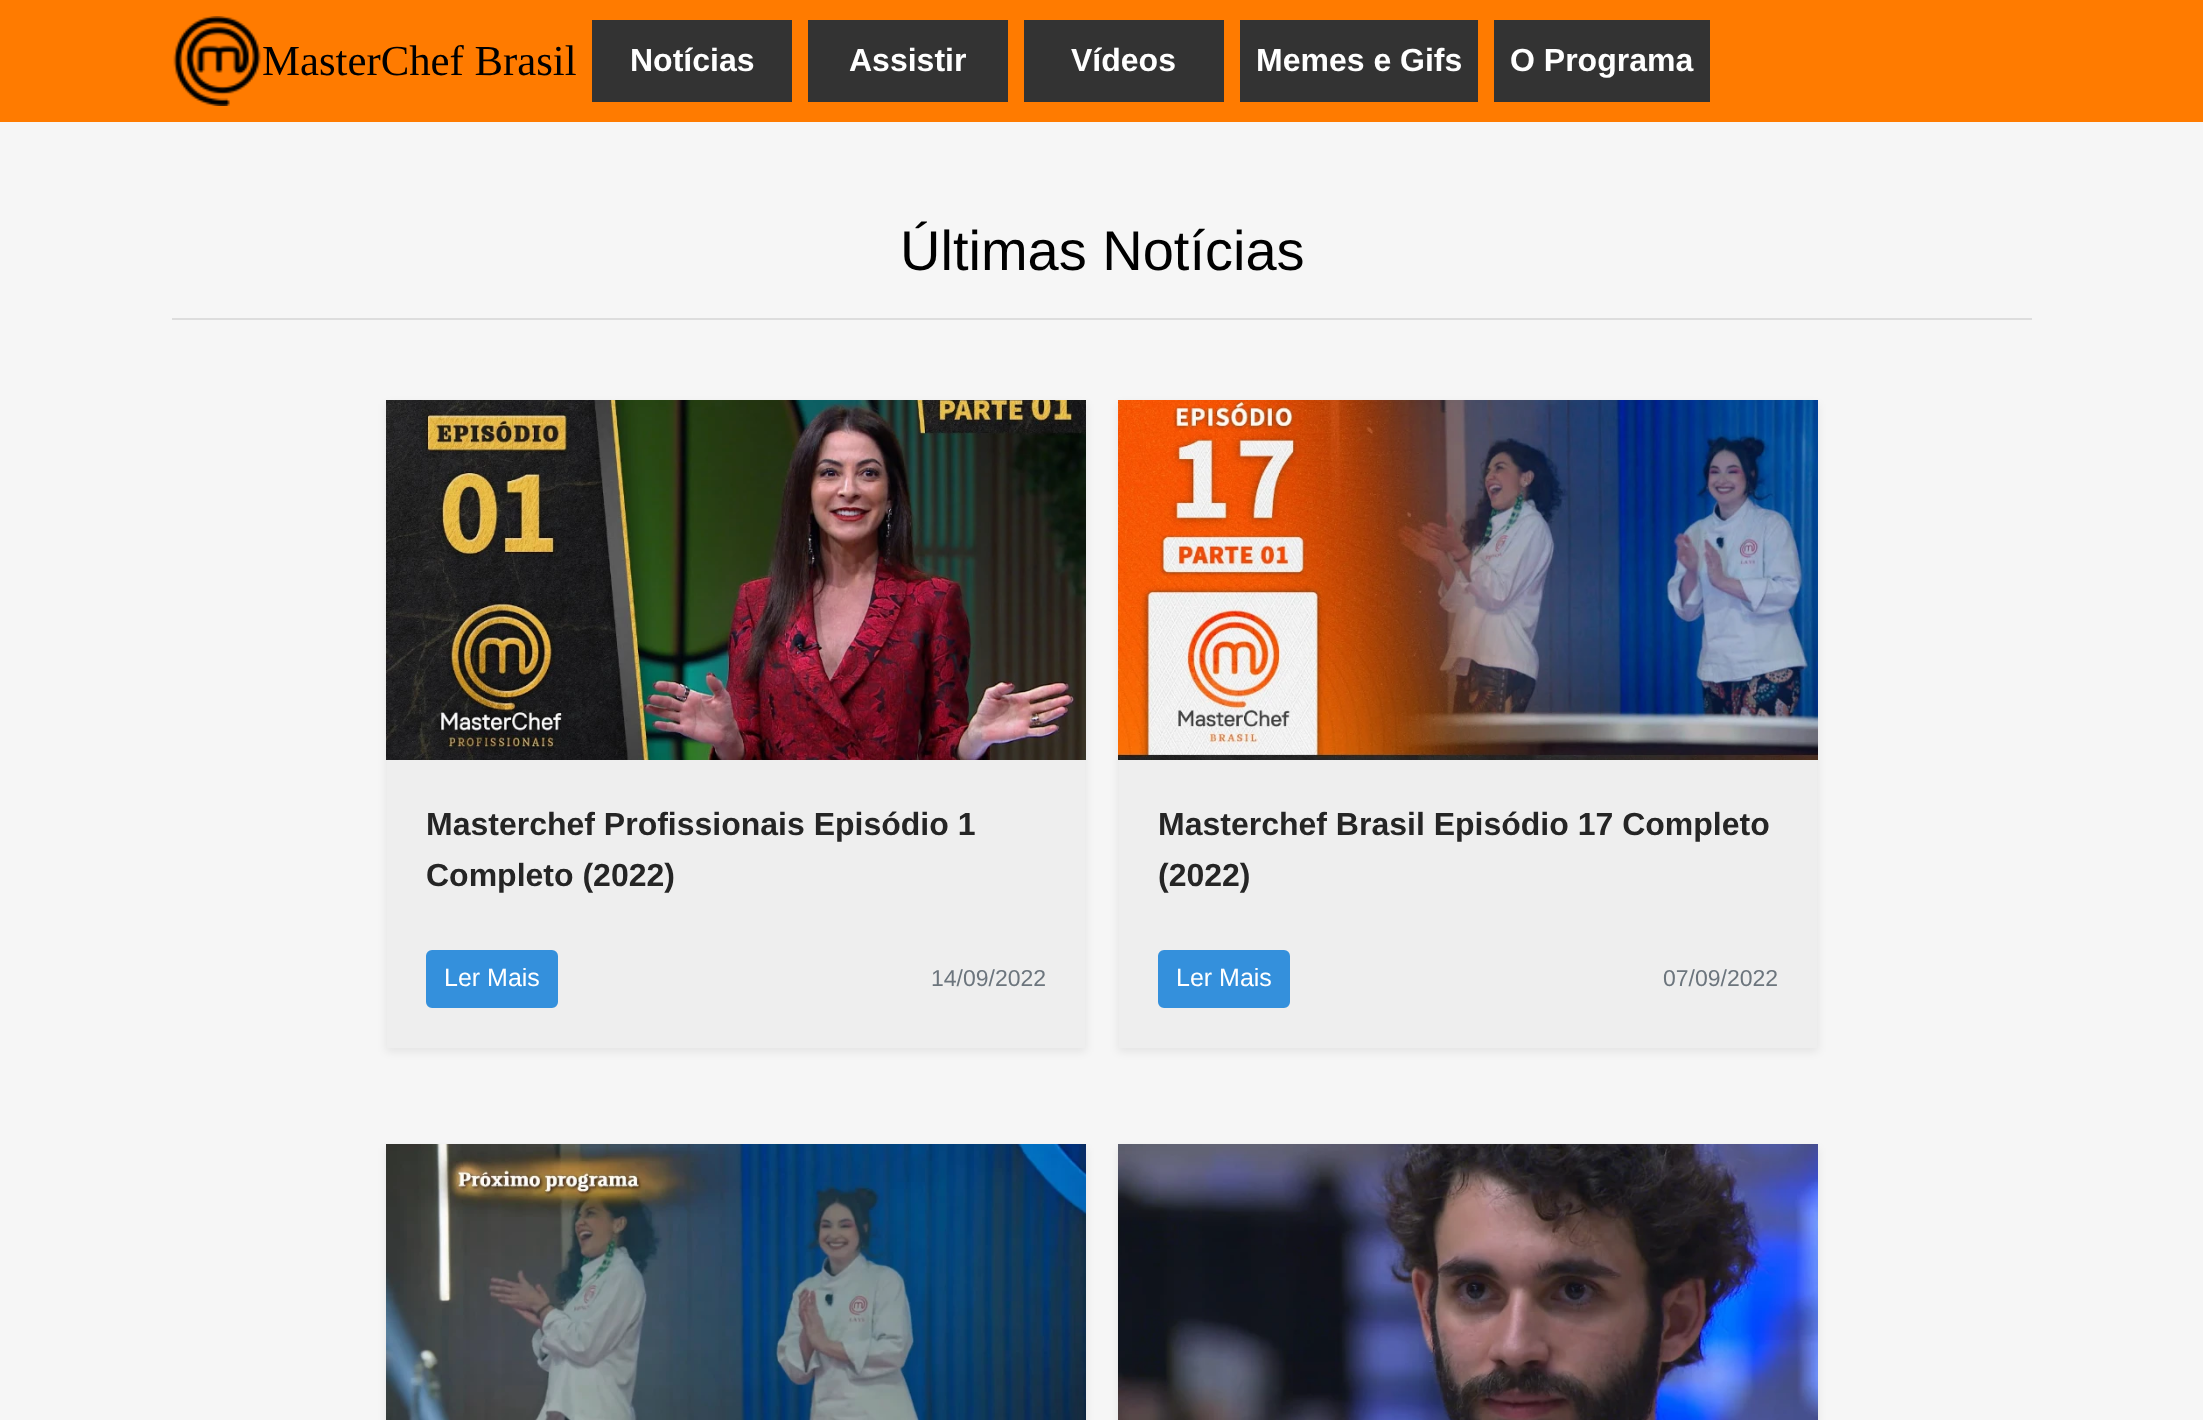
<svg xmlns="http://www.w3.org/2000/svg" width="2203" height="1420">
<style>
.a{font:42.75px Liberation Serif;fill:#000}
.b{font:bold 32px Liberation Sans;fill:#fff}
.c{font:56px Liberation Sans;fill:#000}
.d{font:bold 32px Liberation Sans;fill:#252525}
.e{font:25px Liberation Sans;fill:#fff}
.f{font:23px Liberation Sans;fill:#6c757d}
</style>
<rect width="100%" height="100%" fill="#f6f6f6"/>
<path fill="#ff7b00" d="M0 0h2203v122H0z"/>
<image href="1.png" x="173" y="16" width="88" height="90"/>
<path fill="#333" d="M592 20h200v82H592z"/>
<path fill="#333" d="M808 20h200v82H808z"/>
<path fill="#333" d="M1024 20h200v82H1024z"/>
<path fill="#333" d="M1240 20h238v82H1240z"/>
<path fill="#333" d="M1494 20h216v82H1494z"/>
<path fill="#ddd" d="M172 318h1860v2H172z"/>
<path fill="#00000012" filter="blur(4px)" d="M386 404h700v648H386z"/>
<path fill="#eee" d="M387 760h698v288H387z"/>
<image href="2.png" x="386" y="400" width="700" height="360"/>
<rect fill="#3490dc" stroke="#3490dc" stroke-width="2" x="427" y="951" width="130" height="56" rx="5"/>
<path fill="#00000012" filter="blur(4px)" d="M1118 404h700v648H1118z"/>
<path fill="#eee" d="M1119 760h698v288H1119z"/>
<image href="3.png" x="1118" y="400" width="700" height="360"/>
<rect fill="#3490dc" stroke="#3490dc" stroke-width="2" x="1159" y="951" width="130" height="56" rx="5"/>
<path fill="#00000012" filter="blur(4px)" d="M386 1148h700v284H386z"/>
<image href="4.png" x="386" y="1144" width="700" height="276"/>
<path fill="#00000012" filter="blur(4px)" d="M1118 1148h700v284H1118z"/>
<image href="5.png" x="1118" y="1144" width="700" height="276"/>
<text class="a" x="262" y="75">MasterChef Brasil</text>
<text class="b" x="630" y="71">Notícias</text>
<text class="b" x="849" y="71">Assistir</text>
<text class="b" x="1071" y="71">Vídeos</text>
<text class="b" x="1256" y="71">Memes e Gifs</text>
<text class="b" x="1510" y="71">O Programa</text>
<text class="c" x="900" y="270">Últimas Notícias</text>
<text class="d" x="426" y="835">Masterchef Profissionais Episódio 1</text>
<text class="d" x="426" y="886">Completo (2022)</text>
<text class="e" x="444" y="986">Ler Mais</text>
<text class="f" x="931" y="986">14/09/2022</text>
<text class="d" x="1158" y="835">Masterchef Brasil Episódio 17 Completo</text>
<text class="d" x="1158" y="886">(2022)</text>
<text class="e" x="1176" y="986">Ler Mais</text>
<text class="f" x="1663" y="986">07/09/2022</text>
</svg>
